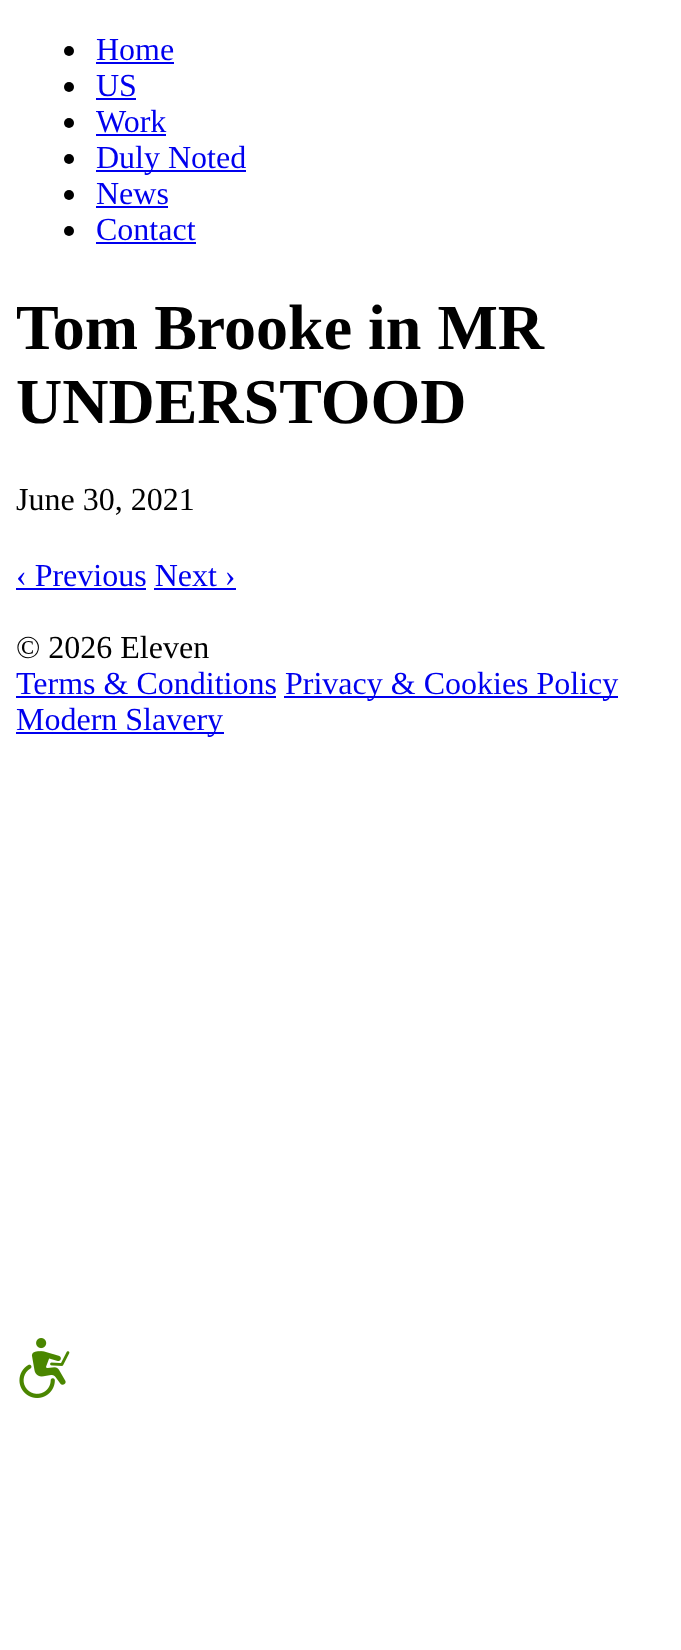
<svg xmlns="http://www.w3.org/2000/svg" width="681" height="1650">
<style>
.a{font:32px Liberation Serif;fill:#00e}
.b{font:bold 64px Liberation Serif;fill:#000}
.c{font:32px Liberation Serif;fill:#000}
</style>
<rect width="100%" height="100%" fill="#fff"/>
<circle fill="#000" cx="69" cy="51" r="5"/>
<path fill="#00e" d="M96 62h78v2H96z"/>
<circle fill="#000" cx="69" cy="87" r="5"/>
<path fill="#00e" d="M96 98h40v2H96z"/>
<circle fill="#000" cx="69" cy="123" r="5"/>
<path fill="#00e" d="M96 134h70v2H96z"/>
<circle fill="#000" cx="69" cy="159" r="5"/>
<path fill="#00e" d="M96 170h150v2H96z"/>
<circle fill="#000" cx="69" cy="195" r="5"/>
<path fill="#00e" d="M96 206h72v2H96z"/>
<circle fill="#000" cx="69" cy="231" r="5"/>
<path fill="#00e" d="M96 242h100v2H96z"/>
<path fill="#00e" d="M16 588h130v2H16z"/>
<path fill="#00e" d="M154 588h82v2H154z"/>
<path fill="#00e" d="M16 696h260v2H16z"/>
<path fill="#00e" d="M284 696h334v2H284z"/>
<path fill="#00e" d="M16 732h208v2H16z"/>
<image href="1.png" x="19" y="1338" width="51" height="60"/>
<text class="a" x="96" y="60">Home</text>
<text class="a" x="96" y="96">US</text>
<text class="a" x="96" y="132">Work</text>
<text class="a" x="96" y="168">Duly Noted</text>
<text class="a" x="96" y="204">News</text>
<text class="a" x="96" y="240">Contact</text>
<text class="b" x="16" y="349">Tom Brooke in MR</text>
<text class="b" x="16" y="423">UNDERSTOOD</text>
<text class="c" x="16" y="510">June 30, 2021</text>
<text class="a" x="16" y="586">‹ Previous Next ›</text>
<text class="c" x="16" y="658">© 2026 Eleven</text>
<text class="a" x="16" y="694">Terms &amp; Conditions</text>
<text class="a" x="285" y="694">Privacy &amp; Cookies Policy</text>
<text class="a" x="16" y="730">Modern Slavery</text>
</svg>
